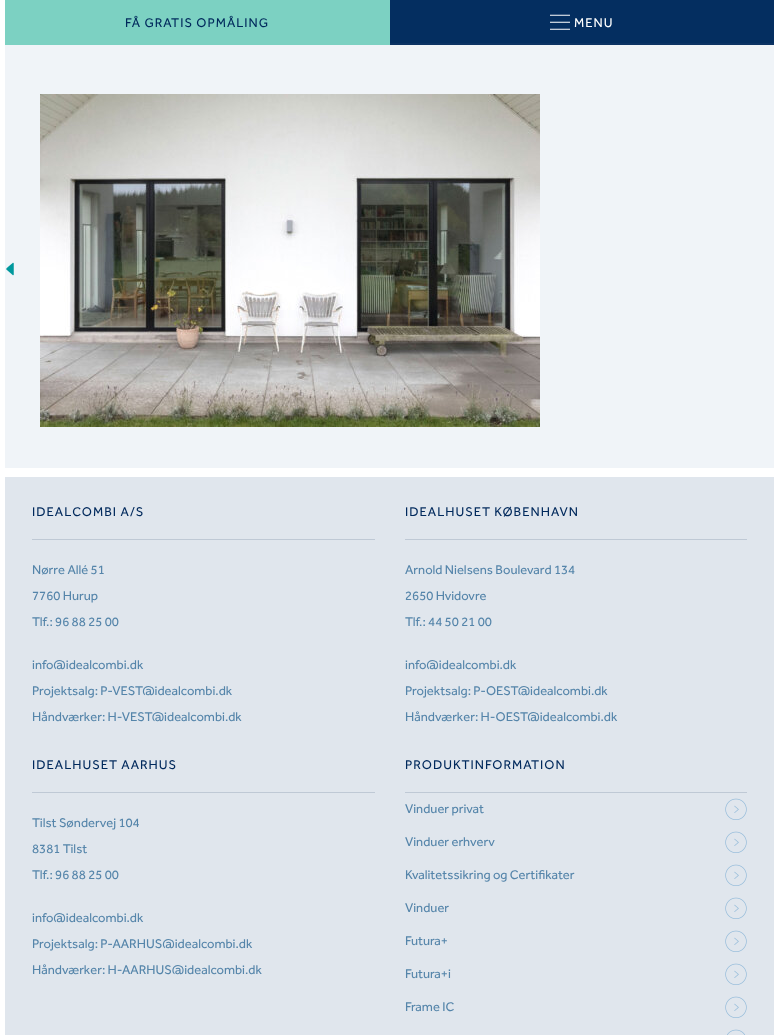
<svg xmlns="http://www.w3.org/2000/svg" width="779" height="1035">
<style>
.a{font:13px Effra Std;letter-spacing:1px;fill:#00295c}
.b{font:13px Effra Std;letter-spacing:1px;fill:#fff}
.c{font:13px Effra Std;fill:#5585aa}
</style>
<rect width="100%" height="100%" fill="#fff"/>
<path fill="#f0f4f8" d="M5 45h769v423H5z"/>
<image href="1.png" x="6" y="262" width="8" height="14"/>
<path fill="#042e60" d="M390 0h384v43H390z"/>
<path fill="#7cd1c2" d="M5 0h385v45H5z"/>
<image href="2.png" x="550" y="14" width="20" height="16"/>
<path fill="#0c3364" d="M390 43h384v2H390z"/>
<image href="3.png" x="40" y="94" width="500" height="333"/>
<path fill="#e0e6ed" d="M5 477h769v558H5z"/>
<path fill="#bfc9d5" d="M32 539h343v1H32z"/>
<path fill="#bfc9d5" d="M405 539h342v1H405z"/>
<path fill="#bfc9d5" d="M32 792h343v1H32z"/>
<path fill="#bfc9d5" d="M405 792h342v1H405z"/>
<image href="4.png" x="725" y="798" width="22" height="22"/>
<image href="4.png" x="725" y="831" width="22" height="22"/>
<image href="4.png" x="725" y="864" width="22" height="22"/>
<image href="4.png" x="725" y="897" width="22" height="22"/>
<image href="4.png" x="725" y="930" width="22" height="22"/>
<image href="4.png" x="725" y="963" width="22" height="22"/>
<image href="4.png" x="725" y="996" width="22" height="22"/>
<image href="5.png" x="727" y="1029" width="18" height="6"/>
<text class="a" x="125" y="27">FÅ GRATIS OPMÅLING</text>
<text class="b" x="574" y="27">MENU</text>
<text class="a" x="32" y="516">IDEALCOMBI A/S</text>
<text class="c" x="32" y="574">Nørre Allé 51</text>
<text class="c" x="32" y="600">7760 Hurup</text>
<text class="c" x="32" y="626">Tlf.: 96 88 25 00</text>
<text class="c" x="32" y="669">info@idealcombi.dk</text>
<text class="c" x="32" y="695">Projektsalg: P-VEST@idealcombi.dk</text>
<text class="c" x="32" y="721">Håndværker: H-VEST@idealcombi.dk</text>
<text class="a" x="405" y="516">IDEALHUSET KØBENHAVN</text>
<text class="c" x="405" y="574">Arnold Nielsens Boulevard 134</text>
<text class="c" x="405" y="600">2650 Hvidovre</text>
<text class="c" x="405" y="626">Tlf.: 44 50 21 00</text>
<text class="c" x="405" y="669">info@idealcombi.dk</text>
<text class="c" x="405" y="695">Projektsalg: P-OEST@idealcombi.dk</text>
<text class="c" x="405" y="721">Håndværker: H-OEST@idealcombi.dk</text>
<text class="a" x="32" y="769">IDEALHUSET AARHUS</text>
<text class="c" x="32" y="827">Tilst Søndervej 104</text>
<text class="c" x="32" y="853">8381 Tilst</text>
<text class="c" x="32" y="879">Tlf.: 96 88 25 00</text>
<text class="c" x="32" y="922">info@idealcombi.dk</text>
<text class="c" x="32" y="948">Projektsalg: P-AARHUS@idealcombi.dk</text>
<text class="c" x="32" y="974">Håndværker: H-AARHUS@idealcombi.dk</text>
<text class="a" x="405" y="769">PRODUKTINFORMATION</text>
<text class="c" x="405" y="813">Vinduer privat</text>
<text class="c" x="405" y="846">Vinduer erhverv</text>
<text class="c" x="405" y="879">Kvalitetssikring og Certifikater</text>
<text class="c" x="405" y="912">Vinduer</text>
<text class="c" x="405" y="945">Futura+</text>
<text class="c" x="405" y="978">Futura+i</text>
<text class="c" x="405" y="1011">Frame IC</text>
</svg>
